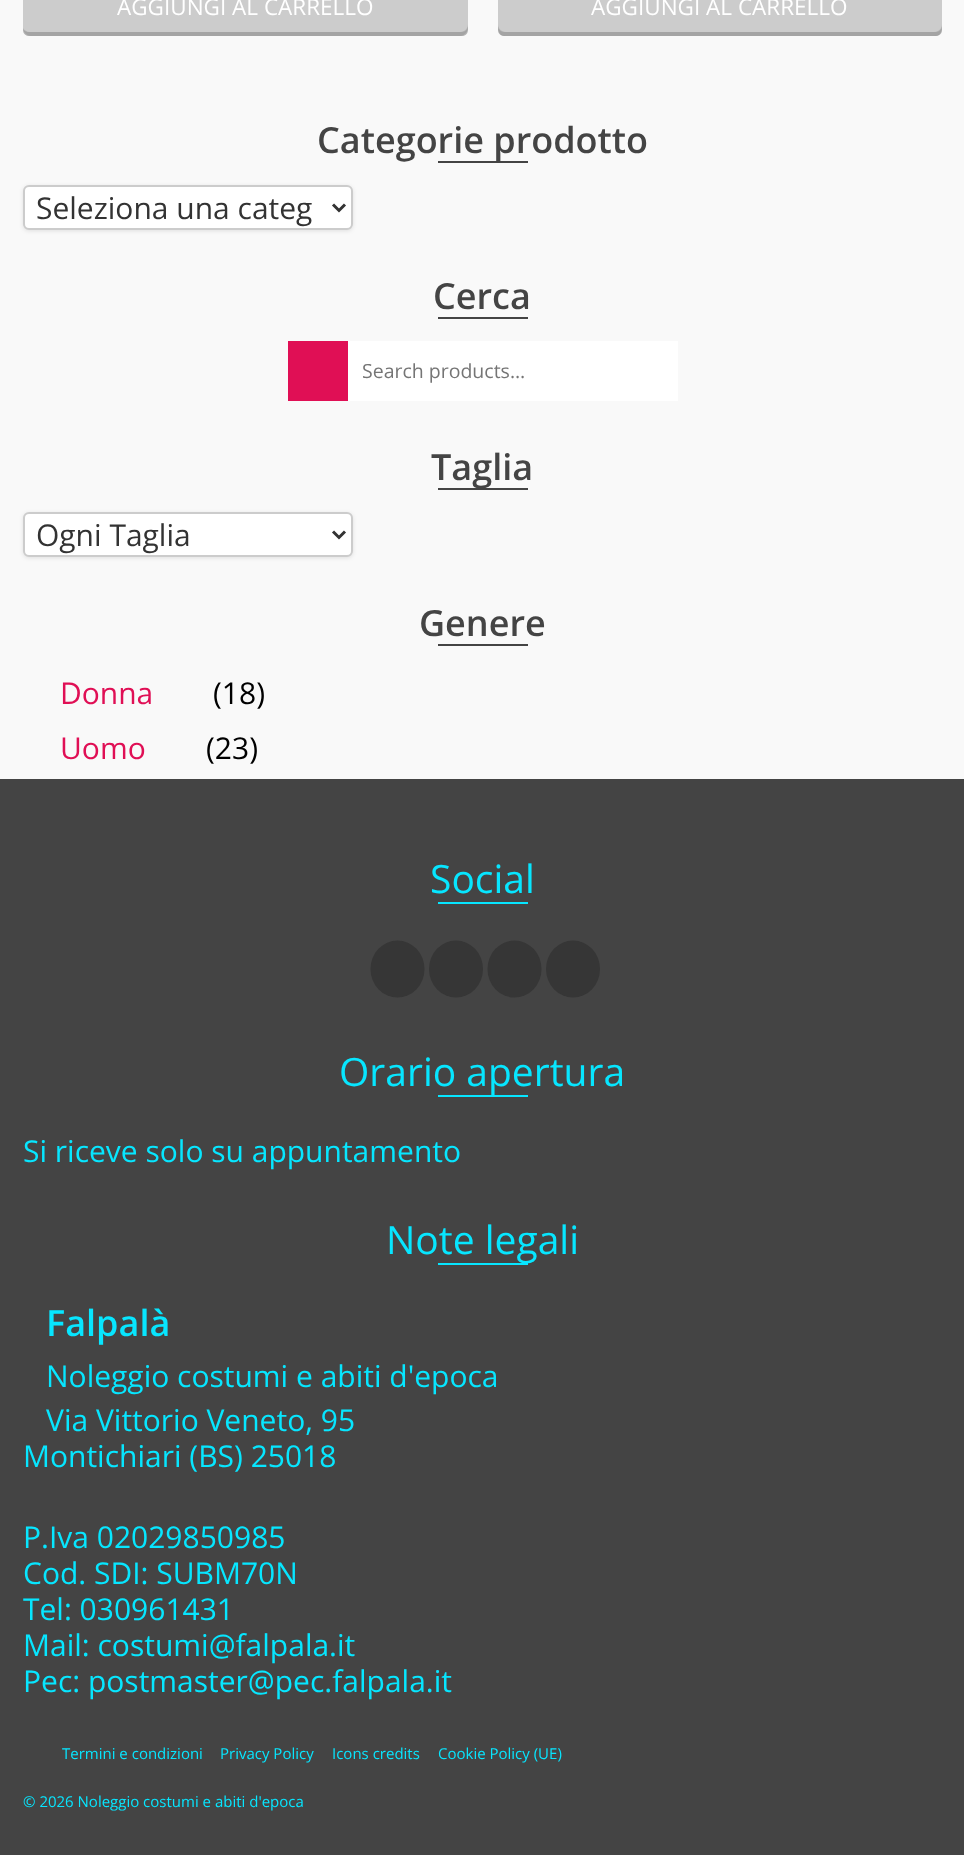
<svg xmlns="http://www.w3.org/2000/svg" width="964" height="1855">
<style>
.a{font:22.5px Open Sans;fill:#fff}
.b{font:600 36px Open Sans;fill:#444}
.c{font:30px Open Sans;fill:#333}
.d{font:19.5px Open Sans;fill:#757575}
.e{font:30px Open Sans;fill:#e00f55}
.f{font:30px Open Sans;fill:#000}
.g{font:39px Open Sans;fill:#07e6ff}
.h{font:30px Open Sans;fill:#07e6ff}
.i{font:600 36px Open Sans;fill:#07e6ff}
.j{font:15px Open Sans;fill:#07e6ff}
</style>
<rect width="100%" height="100%" fill="#f9f9f9"/>
<rect fill="#fff" x="23" y="-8" width="445" height="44" rx="8"/>
<path fill="#e5e5e5" d="M23 28c0 4 4 8 8 8h429c4 0 8-4 8-8v-4c0 4-3 8-8 8h-430c-3 0-6-2-7-4z"/>
<path fill="#00000033" d="M23-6h445v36c0 3.5-2.5 6-6 6h-433c-3.5 0-6-2.5-6-6z"/>
<path fill="#0000001a" d="M23 29c0 4 2 7 6 7h433c6 0 6-6 6-10c0 3-3 6-6 6h-434c-2 0-4-1-5-3z"/>
<rect fill="#fff" x="498" y="-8" width="444" height="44" rx="8"/>
<path fill="#0000001a" d="M498 24c0 5 0 11 6 12h432c6-1 6-7 6-12c0 4-3 8-8 8h-428c-5 0-8-4-8-8z"/>
<path fill="#00000033" d="M498-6h444v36c0 3.5-2.5 6-6 6h-432c-3.5 0-6-2.5-6-6z"/>
<path fill="#0000001a" d="M498 26v4c0 3 3 6 6 6h432c3 0 6-3 6-6v-4c0 3-3 6-6 6h-432c-3 0-6-3-6-6z"/>
<path fill="#444" d="M438 161h90v2H438z"/>
<rect fill="#0000001a" filter="blur(2px)" x="23" y="186" width="330" height="45" rx="6"/>
<rect fill="#fff" stroke="#ccc" stroke-width="2" x="24" y="186" width="328" height="43" rx="5"/>
<path fill="none" stroke="#333" stroke-width="3" d="M333 204.5l6 6l6-6"/>
<path fill="#444" d="M438 317h90v2H438z"/>
<path fill="#e00f55" d="M288 341h60v60H288z"/>
<path fill="#fff" d="M348 341h330v60H348z"/>
<path fill="#444" d="M438 488h90v2H438z"/>
<rect fill="#0000001a" filter="blur(2px)" x="23" y="513" width="330" height="45" rx="6"/>
<rect fill="#fff" stroke="#ccc" stroke-width="2" x="24" y="513" width="328" height="43" rx="5"/>
<path fill="none" stroke="#333" stroke-width="3" d="M333 531.5l6 6l6-6"/>
<path fill="#444" d="M438 644h90v2H438z"/>
<path fill="#444" d="M0 779h964v1076H0z"/>
<path fill="#07e6ff" d="M438 902h90v2H438z"/>
<ellipse fill="#363636" cx="397.5" cy="969" rx="27" ry="28.5"/>
<ellipse fill="#363636" cx="456" cy="969" rx="27" ry="28.5"/>
<ellipse fill="#363636" cx="514.5" cy="969" rx="27" ry="28.5"/>
<ellipse fill="#363636" cx="573" cy="969" rx="27" ry="28.5"/>
<path fill="#07e6ff" d="M438 1095h90v2H438z"/>
<path fill="#07e6ff" d="M438 1263h90v2H438z"/>
<text class="a" x="117" y="15">AGGIUNGI AL CARRELLO</text>
<text class="a" x="591" y="15">AGGIUNGI AL CARRELLO</text>
<text class="b" x="317" y="153">Categorie prodotto</text>
<text class="c" x="36" y="219">Seleziona una categ</text>
<text class="b" x="433" y="309">Cerca</text>
<text class="d" x="362" y="378">Search products…</text>
<text class="b" x="431" y="480">Taglia</text>
<text class="c" x="36" y="546">Ogni Taglia</text>
<text class="b" x="419" y="636">Genere</text>
<text class="e" x="60" y="704">Donna</text>
<text class="f" x="213" y="704">(18)</text>
<text class="e" x="60" y="759">Uomo</text>
<text class="f" x="206" y="759">(23)</text>
<text class="g" x="430" y="893">Social</text>
<text class="g" x="339" y="1086">Orario apertura</text>
<text class="h" x="23" y="1162">Si riceve solo su appuntamento</text>
<text class="g" x="386" y="1254">Note legali</text>
<text class="i" x="46" y="1336">Falpalà</text>
<text class="h" x="46" y="1387">Noleggio costumi e abiti d'epoca</text>
<text class="h" x="46" y="1431">Via Vittorio Veneto, 95</text>
<text class="h" x="23" y="1467">Montichiari (BS) 25018</text>
<text class="h" x="23" y="1548">P.Iva 02029850985</text>
<text class="h" x="23" y="1584">Cod. SDI: SUBM70N</text>
<text class="h" x="23" y="1620">Tel: 030961431</text>
<text class="h" x="23" y="1656">Mail: costumi@falpala.it</text>
<text class="h" x="23" y="1692">Pec: postmaster@pec.falpala.it</text>
<text class="j" x="62" y="1759">Termini e condizioni</text>
<text class="j" x="220" y="1759">Privacy Policy</text>
<text class="j" x="332" y="1759">Icons credits</text>
<text class="j" x="438" y="1759">Cookie Policy (UE)</text>
<text class="j" x="23" y="1807">© 2026 Noleggio costumi e abiti d'epoca</text>
</svg>
